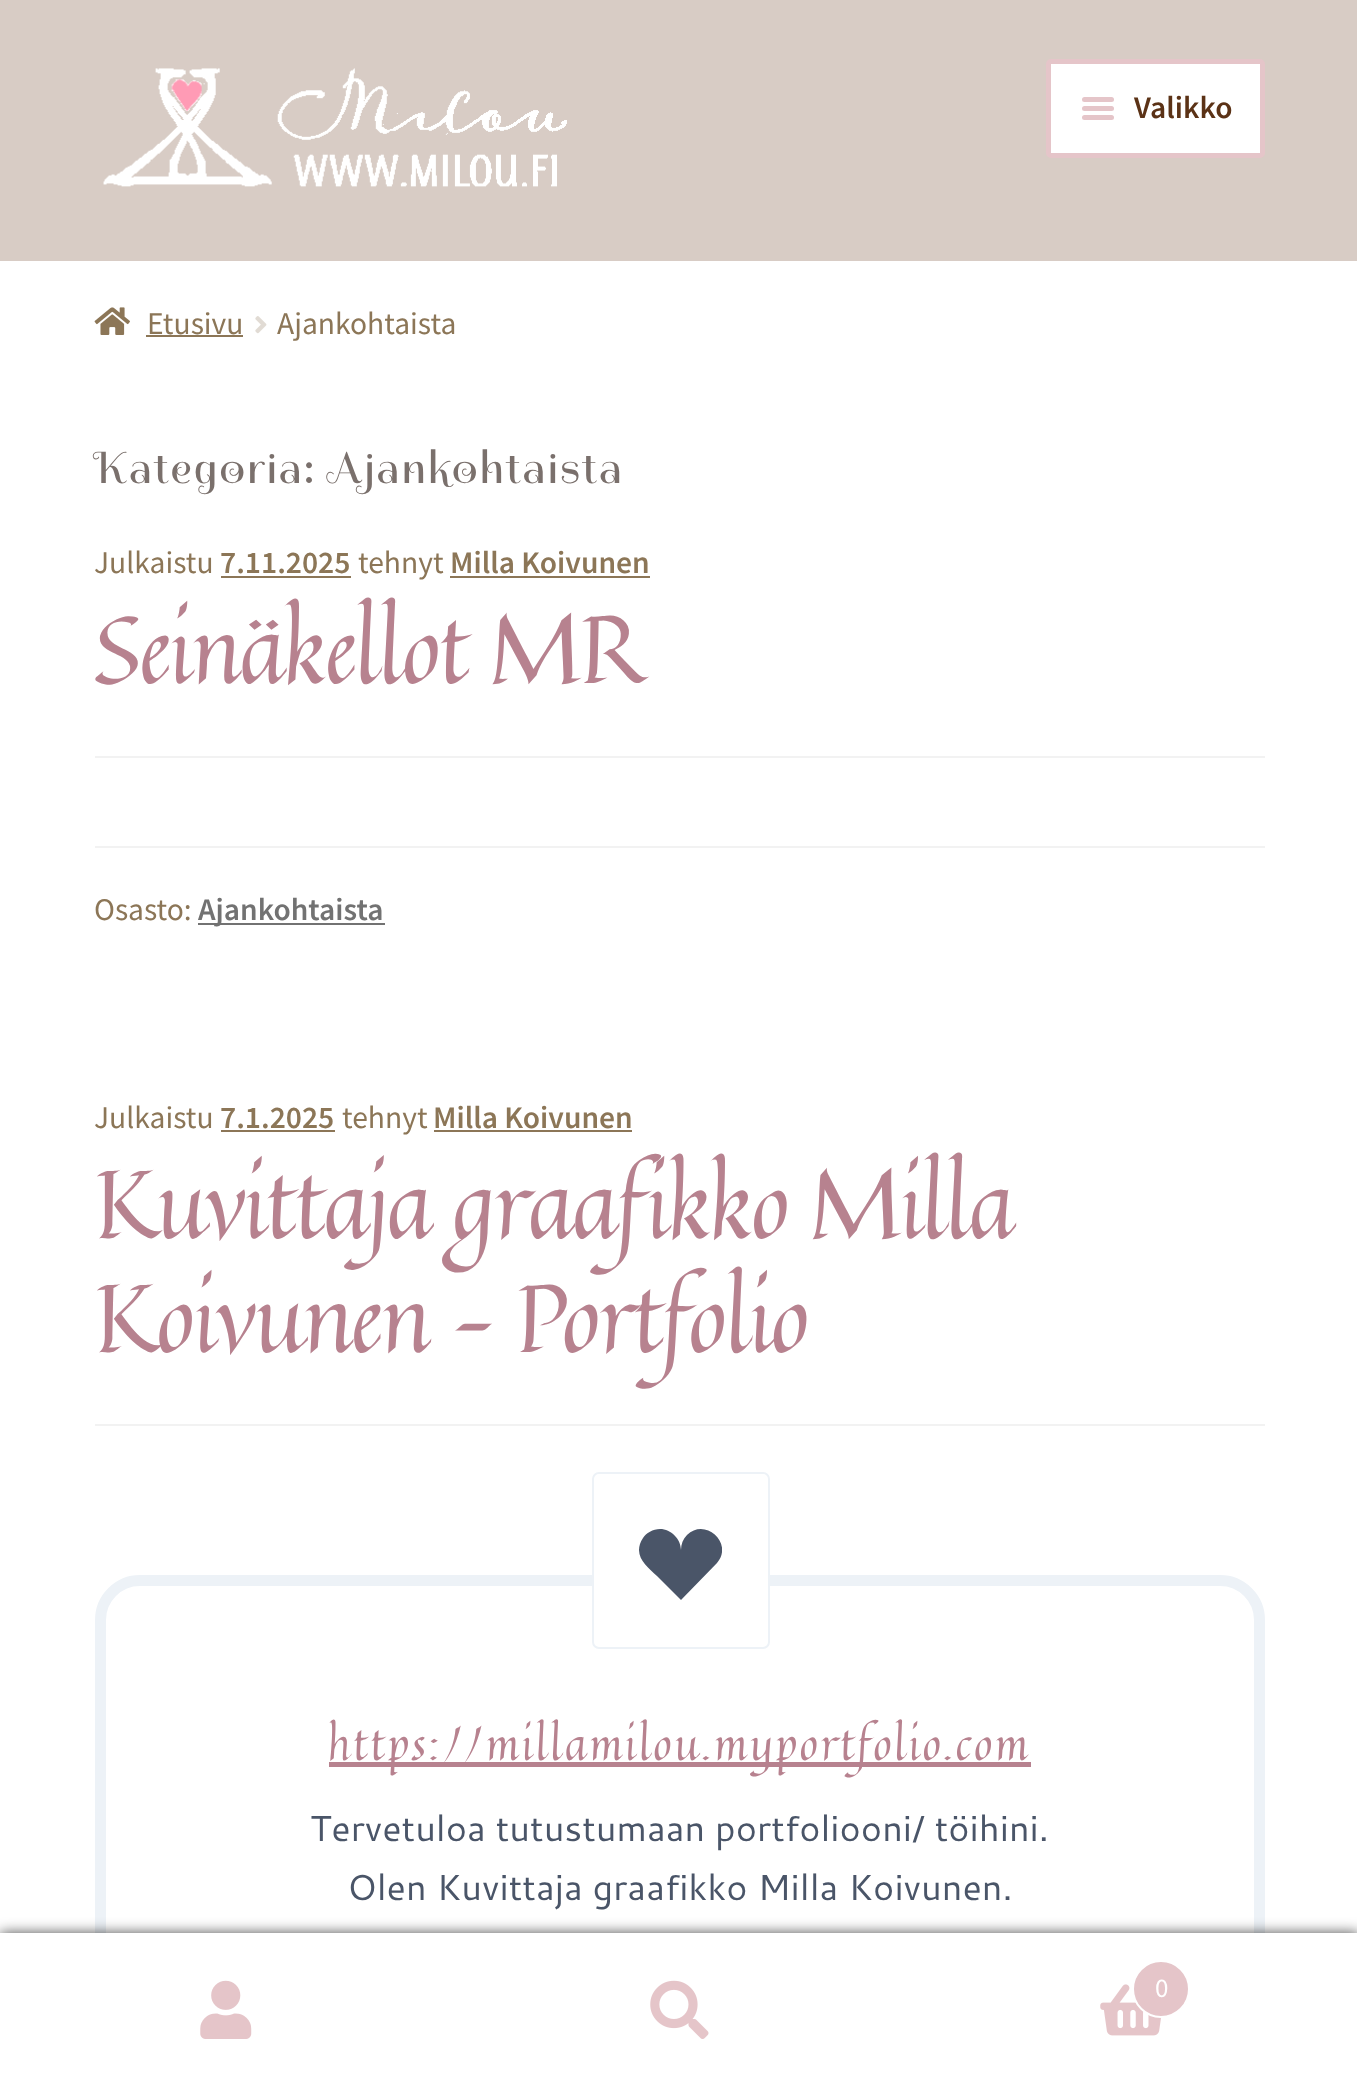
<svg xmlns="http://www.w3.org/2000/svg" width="1357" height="2088">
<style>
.a{font:600 31.5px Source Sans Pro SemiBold;fill:#5b3216}
.b{font:31.5px Source Sans Pro;fill:#8c7657}
.c{font:45px Spirax;letter-spacing:2.25px;fill:#7a706c}
.d{font:600 31.5px Source Sans Pro SemiBold;fill:#8c7657}
.e{font:94.25px Quintessential;letter-spacing:-2.25px;fill:#b7828f}
.f{font:600 31.5px Source Sans Pro SemiBold;fill:#727272}
.g{font:45px Quintessential;letter-spacing:2.25px;fill:#b7828f}
.h{font:36px Cantarell;fill:#4a5568}
.i{font:27px Source Sans Pro;fill:#fff}
</style>
<defs>
<clipPath id="clip1"><path d="M639 1519h83v83H639z"/></clipPath>
</defs>
<rect width="100%" height="100%" fill="#fff"/>
<path fill="#d8ccc5" d="M0 0h1357v261H0z"/>
<image href="1.png" x="103" y="68" width="464" height="119"/>
<rect fill="#fff" stroke="#e5c5c9" stroke-width="5" x="1048.5" y="61.5" width="214" height="94" rx="2.5"/>
<rect fill="#e5c5c9" x="1082" y="97" width="32" height="5" rx="2.5"/>
<rect fill="#e5c5c9" x="1082" y="106" width="32" height="5" rx="2.5"/>
<rect fill="#e5c5c9" x="1082" y="115" width="32" height="5" rx="2.5"/>
<image href="2.png" x="94" y="307" width="36" height="28"/>
<path fill="#8c7657" d="M146 335h97v2H146z"/>
<image href="3.png" x="255" y="316" width="12" height="18"/>
<path fill="#f2f2f2" d="M95 756h1170v2H95z"/>
<path fill="#8c7657" d="M221 576h130v2H221z"/>
<path fill="#8c7657" d="M450 576h200v2H450z"/>
<path fill="#f2f2f2" d="M95 846h1170v2H95z"/>
<path fill="#727272" d="M198 923h187v2H198z"/>
<path fill="#f2f2f2" d="M95 1424h1170v2H95z"/>
<path fill="#8c7657" d="M221 1130h114v2H221z"/>
<path fill="#8c7657" d="M434 1130h198v2H434z"/>
<rect fill="none" stroke="#edf2f7" stroke-width="11" x="100.5" y="1580.5" width="1159" height="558" rx="39.5"/>
<rect fill="#fff" stroke="#edf2f7" stroke-width="2" x="593" y="1473" width="176" height="175" rx="6"/>
<g clip-path="url(#clip1)">
<path fill="#4a5568" d="M660 1529c-7 0-14 4-17 9c-11 17 3 28 14 38l24 24l36-37c17-20-12-46-30-28c-4 4-6 9-6 15c0-11-10-21-21-21z"/>
</g>
<path fill="#b7828f" d="M329 1762h702v5H329z"/>
<path fill="#000000b3" filter="blur(7px)" d="M0 1933h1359v155H0z"/>
<path fill="#fff" d="M0 1933h1357v2H0z"/>
<path fill="#fff" d="M0 1935h1357v153H0z"/>
<image href="4.png" x="200" y="1980" width="52" height="59"/>
<image href="5.png" x="650" y="1980" width="59" height="59"/>
<image href="6.png" x="1100" y="1984" width="62" height="52"/>
<circle fill="#e5c5c9" stroke="#fff" stroke-width="2" cx="1161" cy="1989" r="28"/>
<text class="a" x="1134" y="118">Valikko</text>
<text class="b" x="147" y="334">Etusivu</text>
<text class="b" x="277" y="334">Ajankohtaista</text>
<text class="c" x="94" y="483">Kategoria: Ajankohtaista</text>
<text class="b" x="94" y="573">Julkaistu</text>
<text class="d" x="220" y="573">7.11.2025</text>
<text class="b" x="358" y="573">tehnyt</text>
<text class="d" x="450" y="573">Milla Koivunen</text>
<text class="e" x="94" y="683">Seinäkellot MR</text>
<text class="b" x="94" y="920">Osasto:</text>
<text class="f" x="198" y="920">Ajankohtaista</text>
<text class="b" x="94" y="1128">Julkaistu</text>
<text class="d" x="220" y="1128">7.1.2025</text>
<text class="b" x="342" y="1128">tehnyt</text>
<text class="d" x="433" y="1128">Milla Koivunen</text>
<text class="e" x="94" y="1238">Kuvittaja graafikko Milla</text>
<text class="e" x="94" y="1352">Koivunen – Portfolio</text>
<text class="g" x="328" y="1760">https://millamilou.myportfolio.com</text>
<text class="h" x="310" y="1841">Tervetuloa tutustumaan portfoliooni/ töihini.</text>
<text class="h" x="347" y="1900">Olen Kuvittaja graafikko Milla Koivunen.</text>
<text class="i" x="1155" y="1997">0</text>
</svg>
